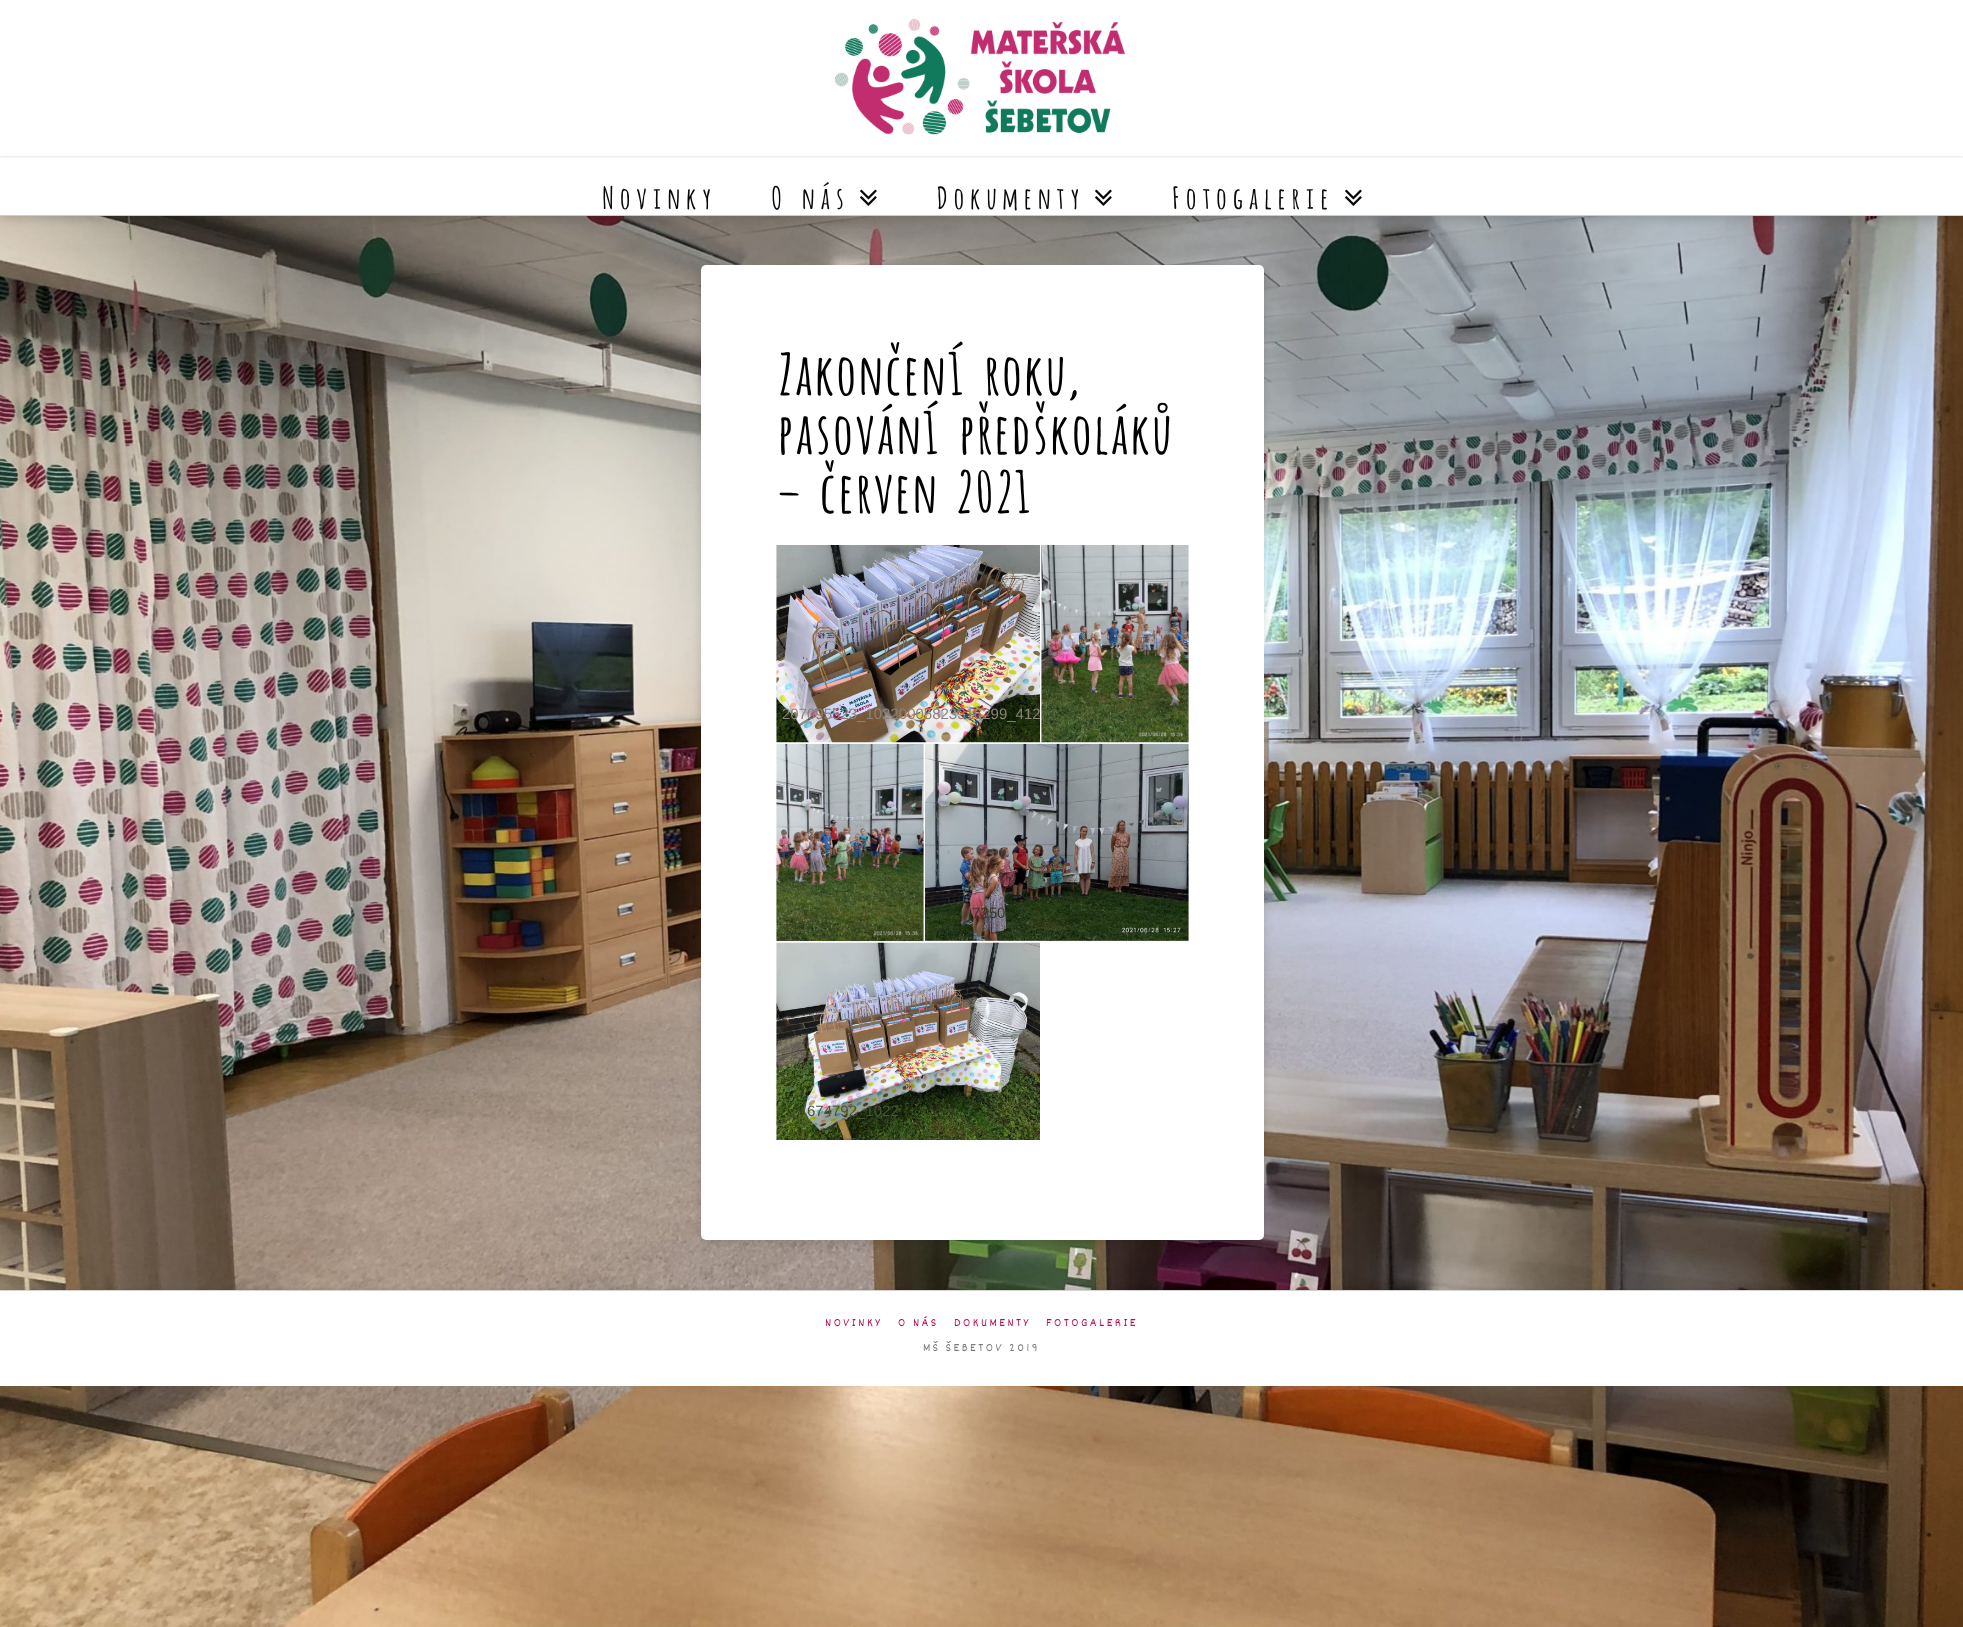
<svg xmlns="http://www.w3.org/2000/svg" width="1963" height="1627">
<style>
.a{font:bold 30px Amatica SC;letter-spacing:3.75px;fill:#080808}
.b{font:bold 56.25px Amatica SC;letter-spacing:-1.75px;fill:#000}
.c{font:15px Liberation Sans;fill:#8c8277}
.d{font:15px Liberation Sans;fill:#313d23}
.e{font:15px Liberation Sans;fill:#465734}
.f{font:12.5px Dekko;letter-spacing:2.5px;fill:#ba0b56}
.g{font:12.5px Dekko;letter-spacing:2.5px;fill:#7a7a7a}
</style>
<rect width="100%" height="100%" fill="#fff"/>
<path fill="#f2f2f2" d="M0 156h1963v1H0z"/>
<image href="1.png" x="834" y="18" width="291" height="117"/>
<image href="8.png" x="0" y="216" width="1963" height="1411"/>
<path fill="#00000021" filter="blur(4px)" d="M0 161h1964v59H0z"/>
<path fill="#fff" d="M0 158h1963v57H0z"/>
<path fill="#ccc" d="M0 215h1963v1H0z"/>
<image href="2.png" x="860" y="189" width="17" height="17"/>
<image href="2.png" x="1095" y="189" width="17" height="17"/>
<image href="2.png" x="1345" y="189" width="17" height="17"/>
<rect fill="#00000021" filter="blur(4px)" x="701" y="269" width="563" height="975" rx="5"/>
<rect fill="#fff" x="701" y="265" width="563" height="975" rx="5"/>
<image href="3.png" x="776" y="545" width="264" height="198"/>
<image href="4.png" x="1041" y="545" width="148" height="198"/>
<image href="5.png" x="776" y="743" width="148" height="199"/>
<image href="6.png" x="925" y="743" width="264" height="199"/>
<image href="7.png" x="776" y="942" width="264" height="198"/>
<path fill="#00000012" filter="blur(1.5px)" d="M0 1289h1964v96H0z"/>
<path fill="#fff" d="M0 1291h1963v95H0z"/>
<path fill="#d4d4d4" d="M0 1290h1963v1H0z"/>
<text class="a" x="601" y="209">Novinky</text>
<text class="a" x="770" y="209">O nás</text>
<text class="a" x="936" y="209">Dokumenty</text>
<text class="a" x="1171" y="209">Fotogalerie</text>
<text class="b" x="776" y="395">Zakončení roku,</text>
<text class="b" x="776" y="454">pasování předškoláků</text>
<text class="b" x="776" y="513">– červen 2021</text>
<text class="c" x="782" y="719">207095523_10220005823316299_412</text>
<text class="d" x="972" y="918">7250</text>
<text class="e" x="807" y="1116">674792_1022</text>
<text class="e" x="965" y="1116">7</text>
<text class="f" x="825" y="1326">NOVINKY</text>
<text class="f" x="898" y="1326">O NÁS</text>
<text class="f" x="954" y="1326">DOKUMENTY</text>
<text class="f" x="1046" y="1326">FOTOGALERIE</text>
<text class="g" x="923" y="1351">MŠ ŠEBETOV 2019</text>
</svg>
